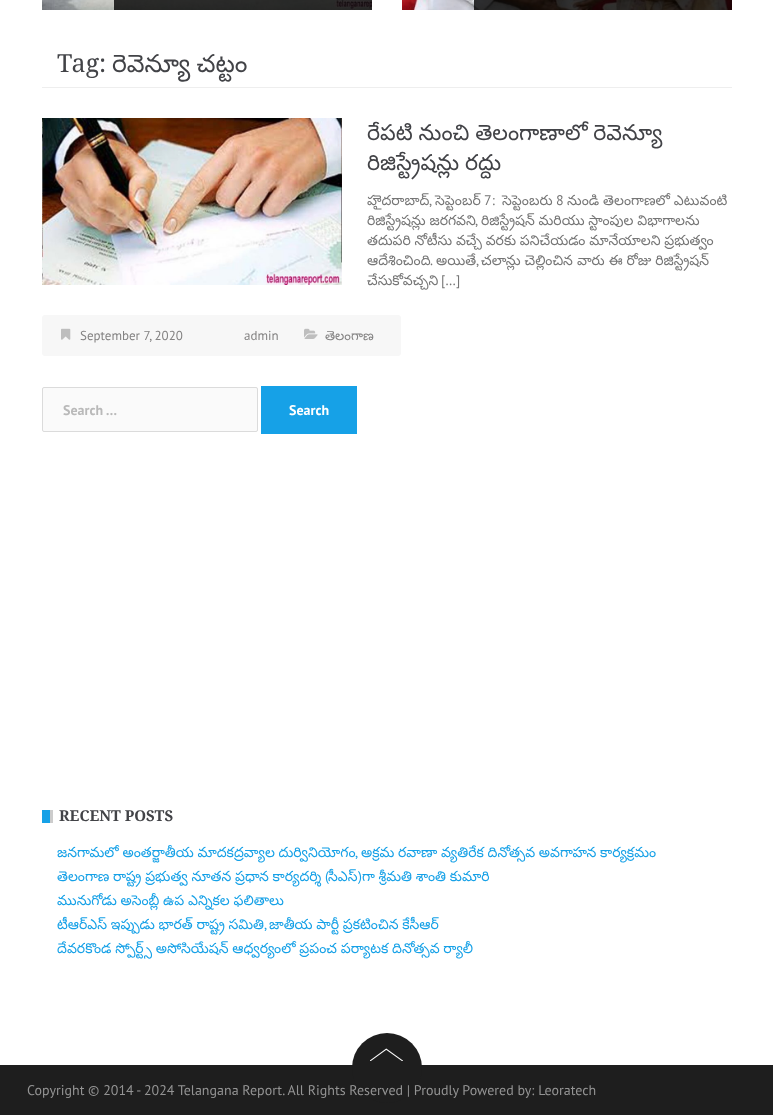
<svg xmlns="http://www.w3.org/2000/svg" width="773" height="1115">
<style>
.a{font:25px Droid Serif;fill:#424347}
.b{font:25px Noto Sans Telugu;fill:#424347}
.c{font:22px Noto Sans Telugu;fill:#424347}
.d{font:14px Noto Sans Telugu;fill:#767676}
.e{font:14px PT Sans;fill:#767676}
.f{font:13px PT Sans;fill:#838282}
.g{font:13px Noto Sans Telugu;fill:#838282}
.h{font:bold 14px PT Sans;fill:#b9b9b9}
.i{font:bold 14px PT Sans;fill:#fff}
.j{font:bold 15px Droid Serif;fill:#424347}
.k{font:14px Noto Sans Telugu;fill:#16a1e7}
.l{font:14px PT Sans;fill:#16a1e7}
.m{font:14px PT Sans;fill:#949494}
</style>
<rect width="100%" height="100%" fill="#fff"/>
<image href="1.png" x="42" y="0" width="330" height="10"/>
<path fill="#000000cc" d="M114 0h258v10H114z"/>
<image href="2.png" x="402" y="0" width="330" height="10"/>
<path fill="#000000cc" d="M474 0h258v10H474z"/>
<path fill="#eee" d="M42 87h690v1H42z"/>
<image href="3.png" x="42" y="118" width="300" height="167"/>
<rect fill="#f7f7f7" x="42" y="315" width="359" height="41" rx="3"/>
<image href="4.png" x="61" y="328" width="10" height="12"/>
<image href="5.png" x="304" y="328" width="14" height="11"/>
<rect fill="#fafafa" stroke="#dbdbdb" x="42.5" y="387.5" width="215" height="44" rx="1.5"/>
<path fill="#16a1e7" d="M261 386h96v48H261z"/>
<path fill="#16a1e7" d="M42 810h8v13H42z"/>
<path fill="#ccc" d="M50 810h3v13H50z"/>
<path fill="#1e1e1e" d="M0 1065h773v50H0z"/>
<circle fill="#1e1e1e" cx="387" cy="1068" r="35"/>
<image href="6.png" x="370" y="1048" width="33" height="13"/>
<text class="a" x="57" y="72">Tag:</text>
<text class="b" x="112" y="72" word-spacing="-1">రెవెన్యూ చట్టం</text>
<text class="c" x="367" y="140" word-spacing="-0.5">రేపటి నుంచి తెలంగాణాలో రెవెన్యూ</text>
<text class="c" x="367" y="170" word-spacing="-0.5">రిజిస్ట్రేషన్లు రద్దు</text>
<text class="d" x="367" y="205">హైదరాబాద్</text>
<text class="e" x="429" y="205">,</text>
<text class="d" x="435" y="205">సెప్టెంబర్</text>
<text class="e" x="484" y="205">7:</text>
<text class="d" x="502" y="205">సెప్టెంబరు</text>
<text class="e" x="556" y="205">8</text>
<text class="d" x="567" y="205">నుండి తెలంగాణలో ఎటువంటి</text>
<text class="d" x="367" y="225" word-spacing="-0.25">రిజిస్ట్రేషన్లు జరగవని</text>
<text class="e" x="475" y="225">,</text>
<text class="d" x="481" y="225" word-spacing="-0.25">రిజిస్ట్రేషన్ మరియు స్టాంపుల విభాగాలను</text>
<text class="d" x="367" y="245" word-spacing="-0.25">తదుపరి నోటీసు వచ్చే వరకు పనిచేయడం మానేయాలని ప్రభుత్వం</text>
<text class="d" x="367" y="265">ఆదేశించింది</text>
<text class="e" x="430" y="265">.</text>
<text class="d" x="436" y="265">అయితే</text>
<text class="e" x="476" y="265">,</text>
<text class="d" x="481" y="265">చలాన్లు చెల్లించిన వారు ఈ రోజు రిజిస్ట్రేషన్</text>
<text class="d" x="367" y="285">చేసుకోవచ్చని</text>
<text class="e" x="441" y="285">[…]</text>
<text class="f" x="80" y="340">September 7, 2020</text>
<text class="f" x="244" y="340">admin</text>
<text class="g" x="325" y="340">తెలంగాణ</text>
<text class="h" x="63" y="415">Search …</text>
<text class="i" x="289" y="415">Search</text>
<text class="j" x="59" y="821">RECENT POSTS</text>
<text class="k" x="57" y="857" word-spacing="-0.25">జనగామలో అంతర్జాతీయ మాదకద్రవ్యాల దుర్వినియోగం</text>
<text class="l" x="355" y="857">,</text>
<text class="k" x="361" y="857" word-spacing="-0.25">అక్రమ రవాణా వ్యతిరేక దినోత్సవ అవగాహన కార్యక్రమం</text>
<text class="k" x="57" y="881" word-spacing="-0.25">తెలంగాణ రాష్ట్ర ప్రభుత్వ నూతన ప్రధాన కార్యదర్శి</text>
<text class="l" x="325" y="881">(</text>
<text class="k" x="328" y="881">సీఎస్</text>
<text class="l" x="358" y="881">)</text>
<text class="k" x="362" y="881" word-spacing="-0.25">గా శ్రీమతి శాంతి కుమారి</text>
<text class="k" x="57" y="905" word-spacing="-0.25">మునుగోడు అసెంబ్లీ ఉప ఎన్నికల ఫలితాలు</text>
<text class="k" x="57" y="929" word-spacing="-0.25">టీఆర్ఎస్ ఇప్పుడు భారత్‌ రాష్ట్ర సమితి</text>
<text class="l" x="264" y="929">,</text>
<text class="k" x="269" y="929" word-spacing="-0.25">జాతీయ పార్టీ ప్రకటించిన కేసీఆర్</text>
<text class="k" x="57" y="953" word-spacing="-0.25">దేవరకొండ స్పోర్ట్స్ అసోసియేషన్ ఆధ్వర్యంలో ప్రపంచ పర్యాటక దినోత్సవ ర్యాలీ</text>
<text class="m" x="27" y="1095">Copyright © 2014 - 2024 Telangana Report. All Rights Reserved | Proudly Powered by: Leoratech</text>
</svg>
